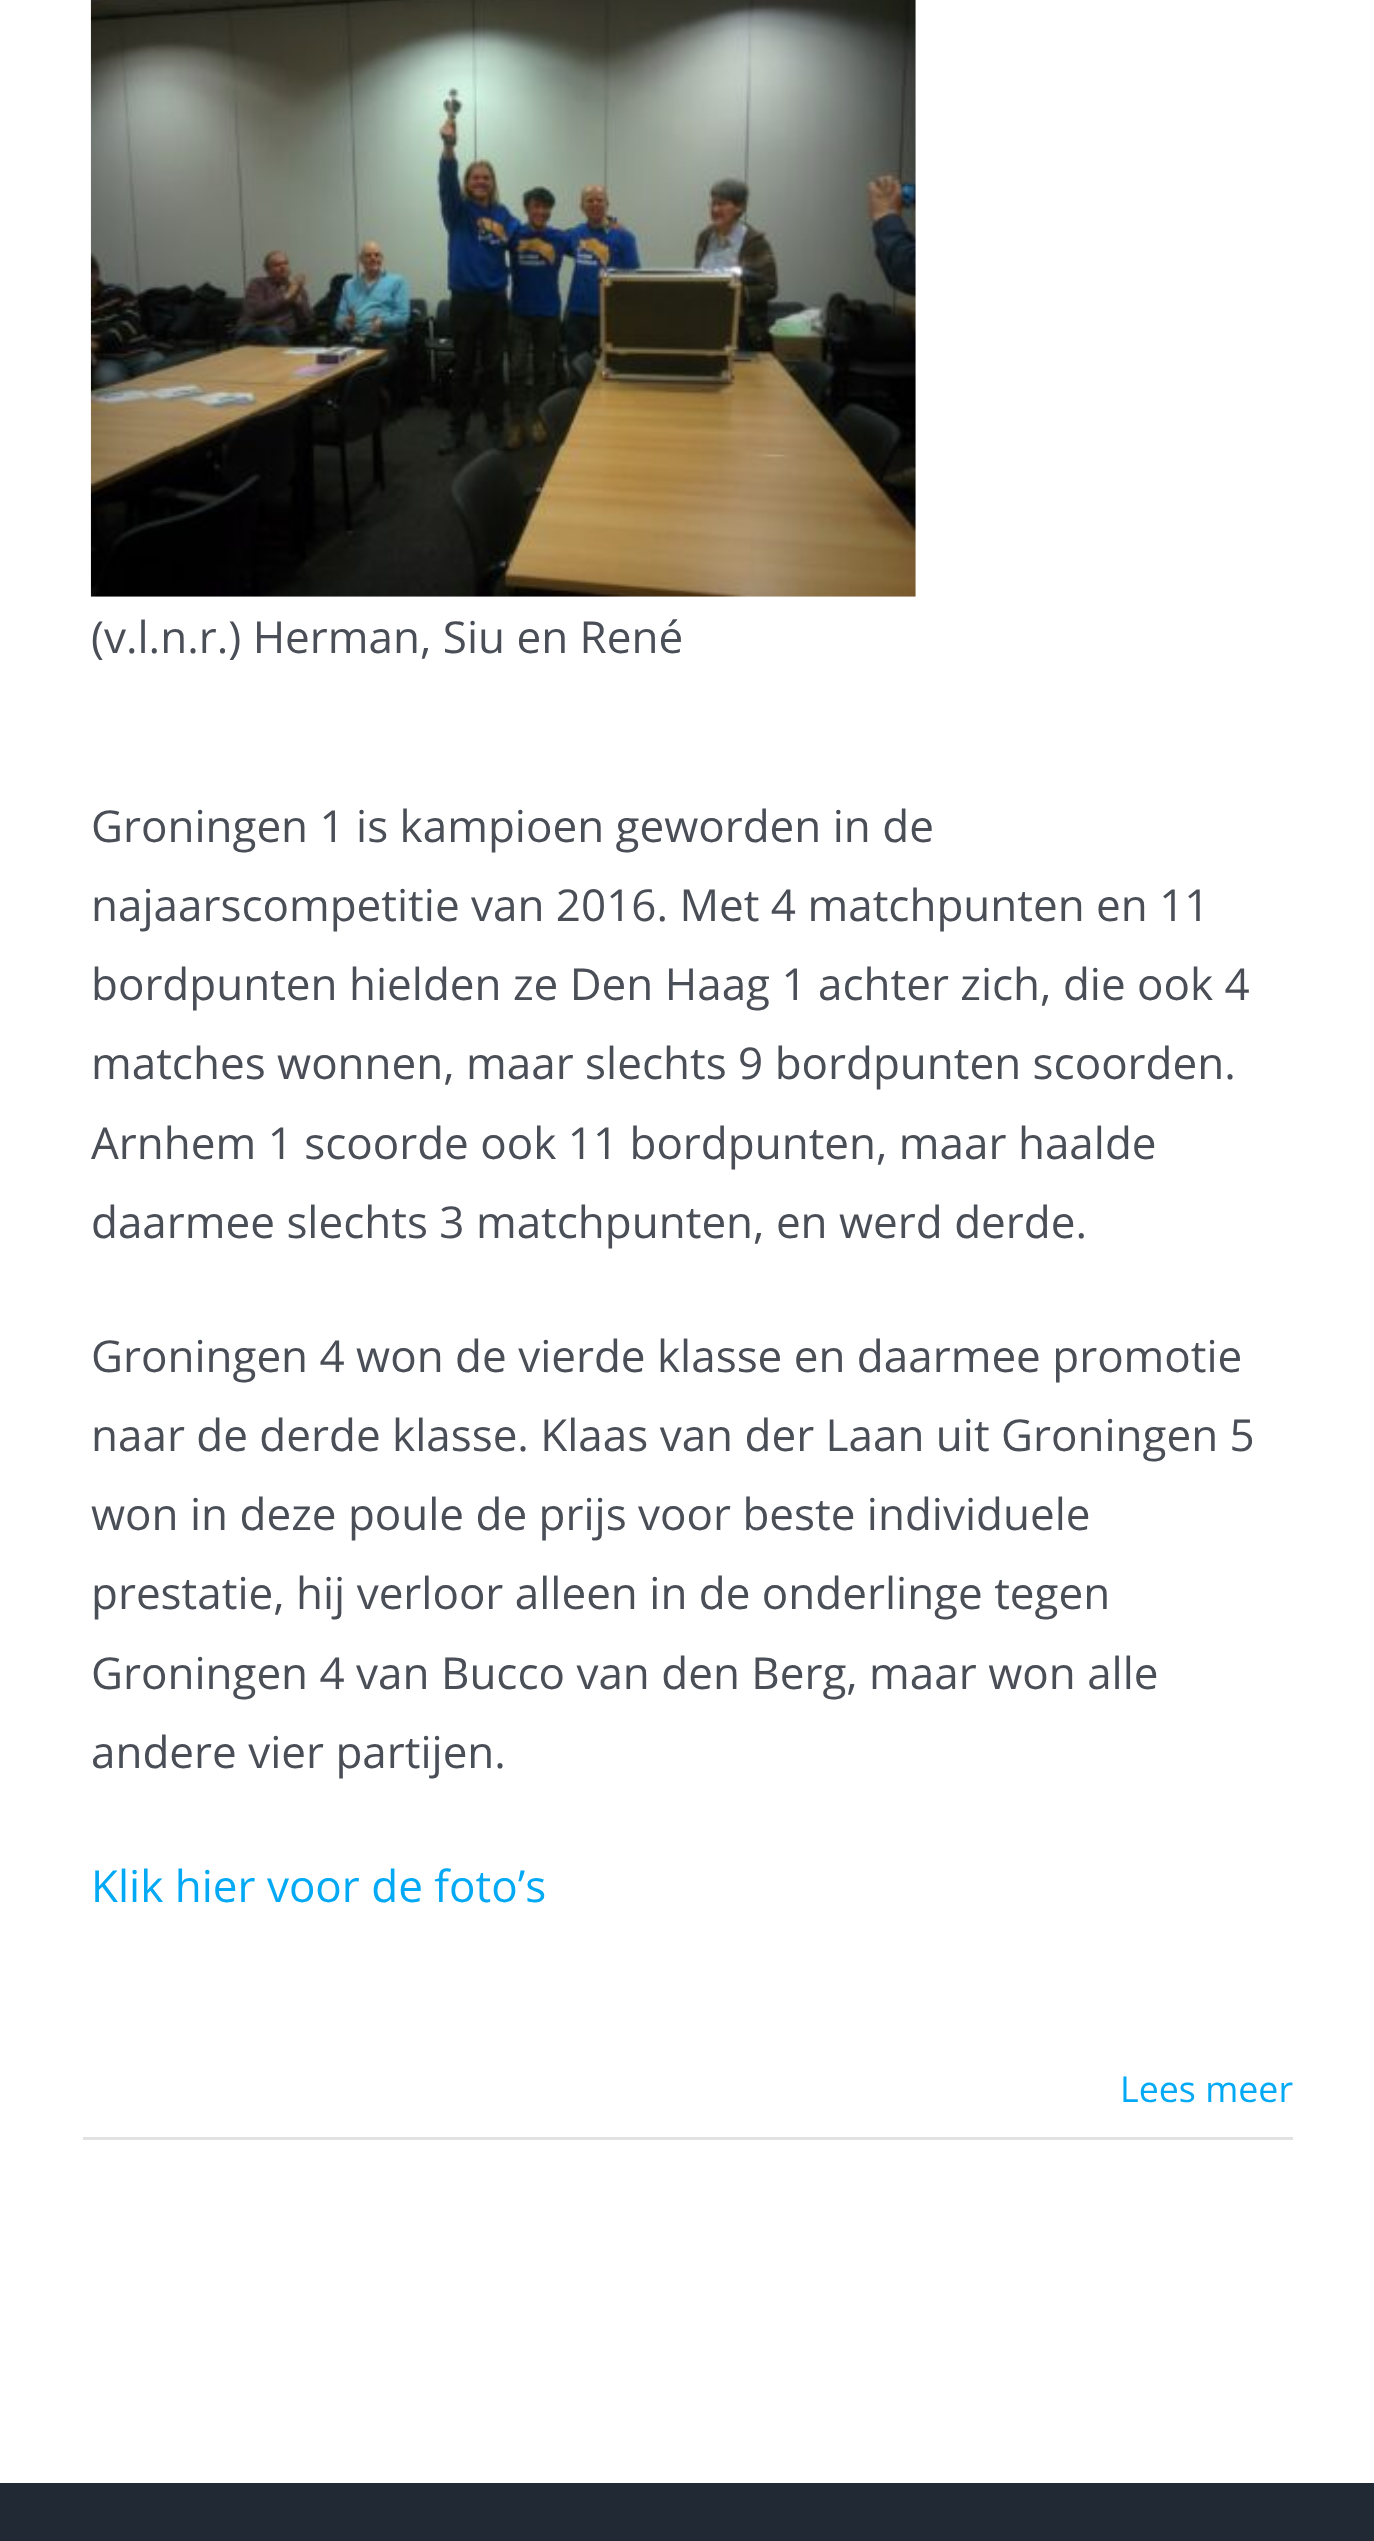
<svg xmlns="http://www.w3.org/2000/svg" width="1374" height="2541">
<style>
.a{font:44px Open Sans;fill:#4a4e57}
.b{font:44px Open Sans;fill:#03a9f4}
.c{font:35.75px Open Sans;fill:#03a9f4}
</style>
<rect width="100%" height="100%" fill="#fff"/>
<image href="1.png" x="90" y="0" width="826" height="597"/>
<path fill="#e2e2e2" d="M83 2137h1210v3H83z"/>
<path fill="#212934" d="M0 2483h1374v58H0z"/>
<text class="a" x="91" y="653">(v.l.n.r.) Herman, Siu en René</text>
<text class="a" x="91" y="842">Groningen 1 is kampioen geworden in de</text>
<text class="a" x="91" y="921">najaarscompetitie van 2016. Met 4 matchpunten en 11</text>
<text class="a" x="91" y="1000">bordpunten hielden ze Den Haag 1 achter zich, die ook 4</text>
<text class="a" x="91" y="1079">matches wonnen, maar slechts 9 bordpunten scoorden.</text>
<text class="a" x="91" y="1159">Arnhem 1 scoorde ook 11 bordpunten, maar haalde</text>
<text class="a" x="91" y="1238">daarmee slechts 3 matchpunten, en werd derde.</text>
<text class="a" x="91" y="1372">Groningen 4 won de vierde klasse en daarmee promotie</text>
<text class="a" x="91" y="1451">naar de derde klasse. Klaas van der Laan uit Groningen 5</text>
<text class="a" x="91" y="1530">won in deze poule de prijs voor beste individuele</text>
<text class="a" x="91" y="1609">prestatie, hij verloor alleen in de onderlinge tegen</text>
<text class="a" x="91" y="1689">Groningen 4 van Bucco van den Berg, maar won alle</text>
<text class="a" x="91" y="1768">andere vier partijen.</text>
<text class="b" x="91" y="1902">Klik hier voor de foto’s</text>
<text class="c" x="1120" y="2102">Lees meer</text>
</svg>
